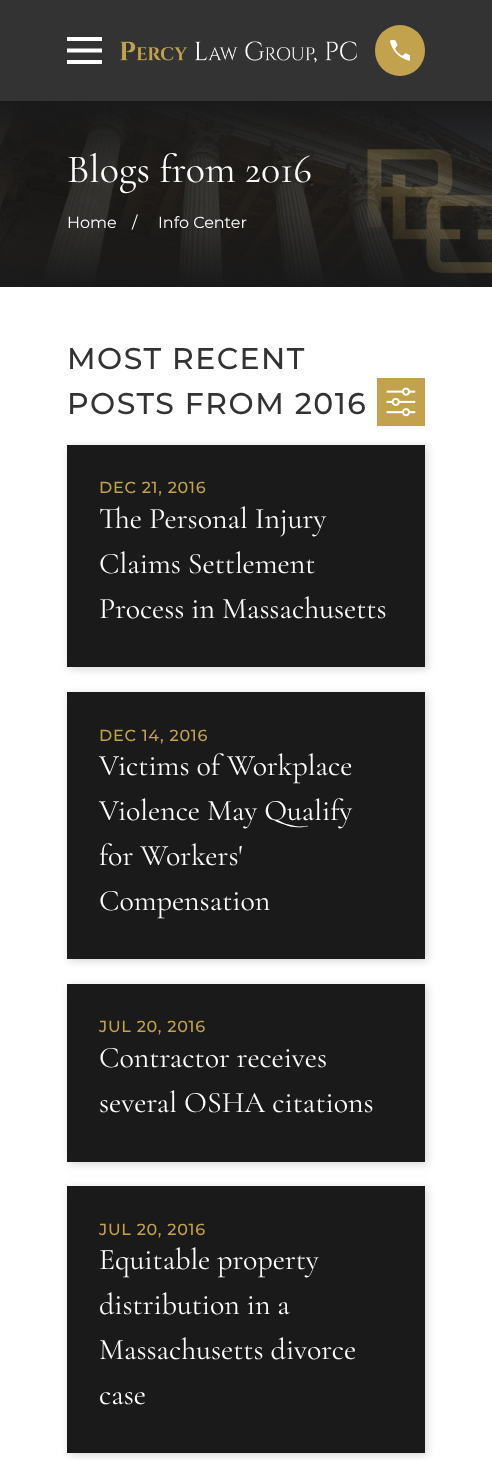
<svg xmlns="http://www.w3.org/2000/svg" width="492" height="1460">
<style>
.a{font:40px Cormorant Garamond;fill:#fff}
.b{font:16px Montserrat;fill:#fff}
.c{font:500 29.9px Montserrat;letter-spacing:1.5px;fill:#333}
.d{font:500 16px Montserrat;letter-spacing:0.75px;fill:#c2a24d}
.e{font:29.9px Cormorant Garamond;fill:#fff}
</style>
<rect width="100%" height="100%" fill="#fff"/>
<path fill="#333" d="M0 0h492v101H0z"/>
<path fill="#fff" d="M67 37v4h35v-4zm0 11.5v4h35v-4zm0 11.5v4h35v-4z"/>
<image href="1.png" x="120" y="41" width="237" height="22"/>
<rect fill="#c2a24d" x="375" y="25" width="50" height="51" rx="25"/>
<image href="2.png" x="390" y="40" width="20" height="21"/>
<image href="3.png" x="0" y="101" width="492" height="186"/>
<path fill="#c2a24d" d="M377 378h48v48H377z"/>
<image href="4.png" x="386" y="387" width="30" height="30"/>
<path fill="#00000029" filter="blur(4px)" d="M69 447h358v222H69z"/>
<path fill="#1a1a1a" d="M67 445h358v222H67z"/>
<path fill="#00000029" filter="blur(4px)" d="M69 694h358v267H69z"/>
<path fill="#1a1a1a" d="M67 692h358v267H67z"/>
<path fill="#00000029" filter="blur(4px)" d="M69 986h358v178H69z"/>
<path fill="#1a1a1a" d="M67 984h358v178H67z"/>
<path fill="#00000029" filter="blur(4px)" d="M69 1188h358v267H69z"/>
<path fill="#1a1a1a" d="M67 1186h358v267H67z"/>
<text class="a" x="67" y="182">Blogs from 2016</text>
<text class="b" x="67" y="228">Home</text>
<text class="b" x="132" y="228">/</text>
<text class="b" x="158" y="228">Info Center</text>
<text class="c" x="67" y="369">MOST RECENT</text>
<text class="c" x="67" y="414">POSTS FROM 2016</text>
<text class="d" x="99" y="493">DEC 21, 2016</text>
<text class="e" x="99" y="528">The Personal Injury</text>
<text class="e" x="99" y="573">Claims Settlement</text>
<text class="e" x="99" y="618">Process in Massachusetts</text>
<text class="d" x="99" y="741">DEC 14, 2016</text>
<text class="e" x="99" y="775">Victims of Workplace</text>
<text class="e" x="99" y="820">Violence May Qualify</text>
<text class="e" x="99" y="865">for Workers'</text>
<text class="e" x="99" y="910">Compensation</text>
<text class="d" x="99" y="1032">JUL 20, 2016</text>
<text class="e" x="99" y="1067">Contractor receives</text>
<text class="e" x="99" y="1112">several OSHA citations</text>
<text class="d" x="99" y="1235">JUL 20, 2016</text>
<text class="e" x="99" y="1269">Equitable property</text>
<text class="e" x="99" y="1314">distribution in a</text>
<text class="e" x="99" y="1359">Massachusetts divorce</text>
<text class="e" x="99" y="1404">case</text>
</svg>
